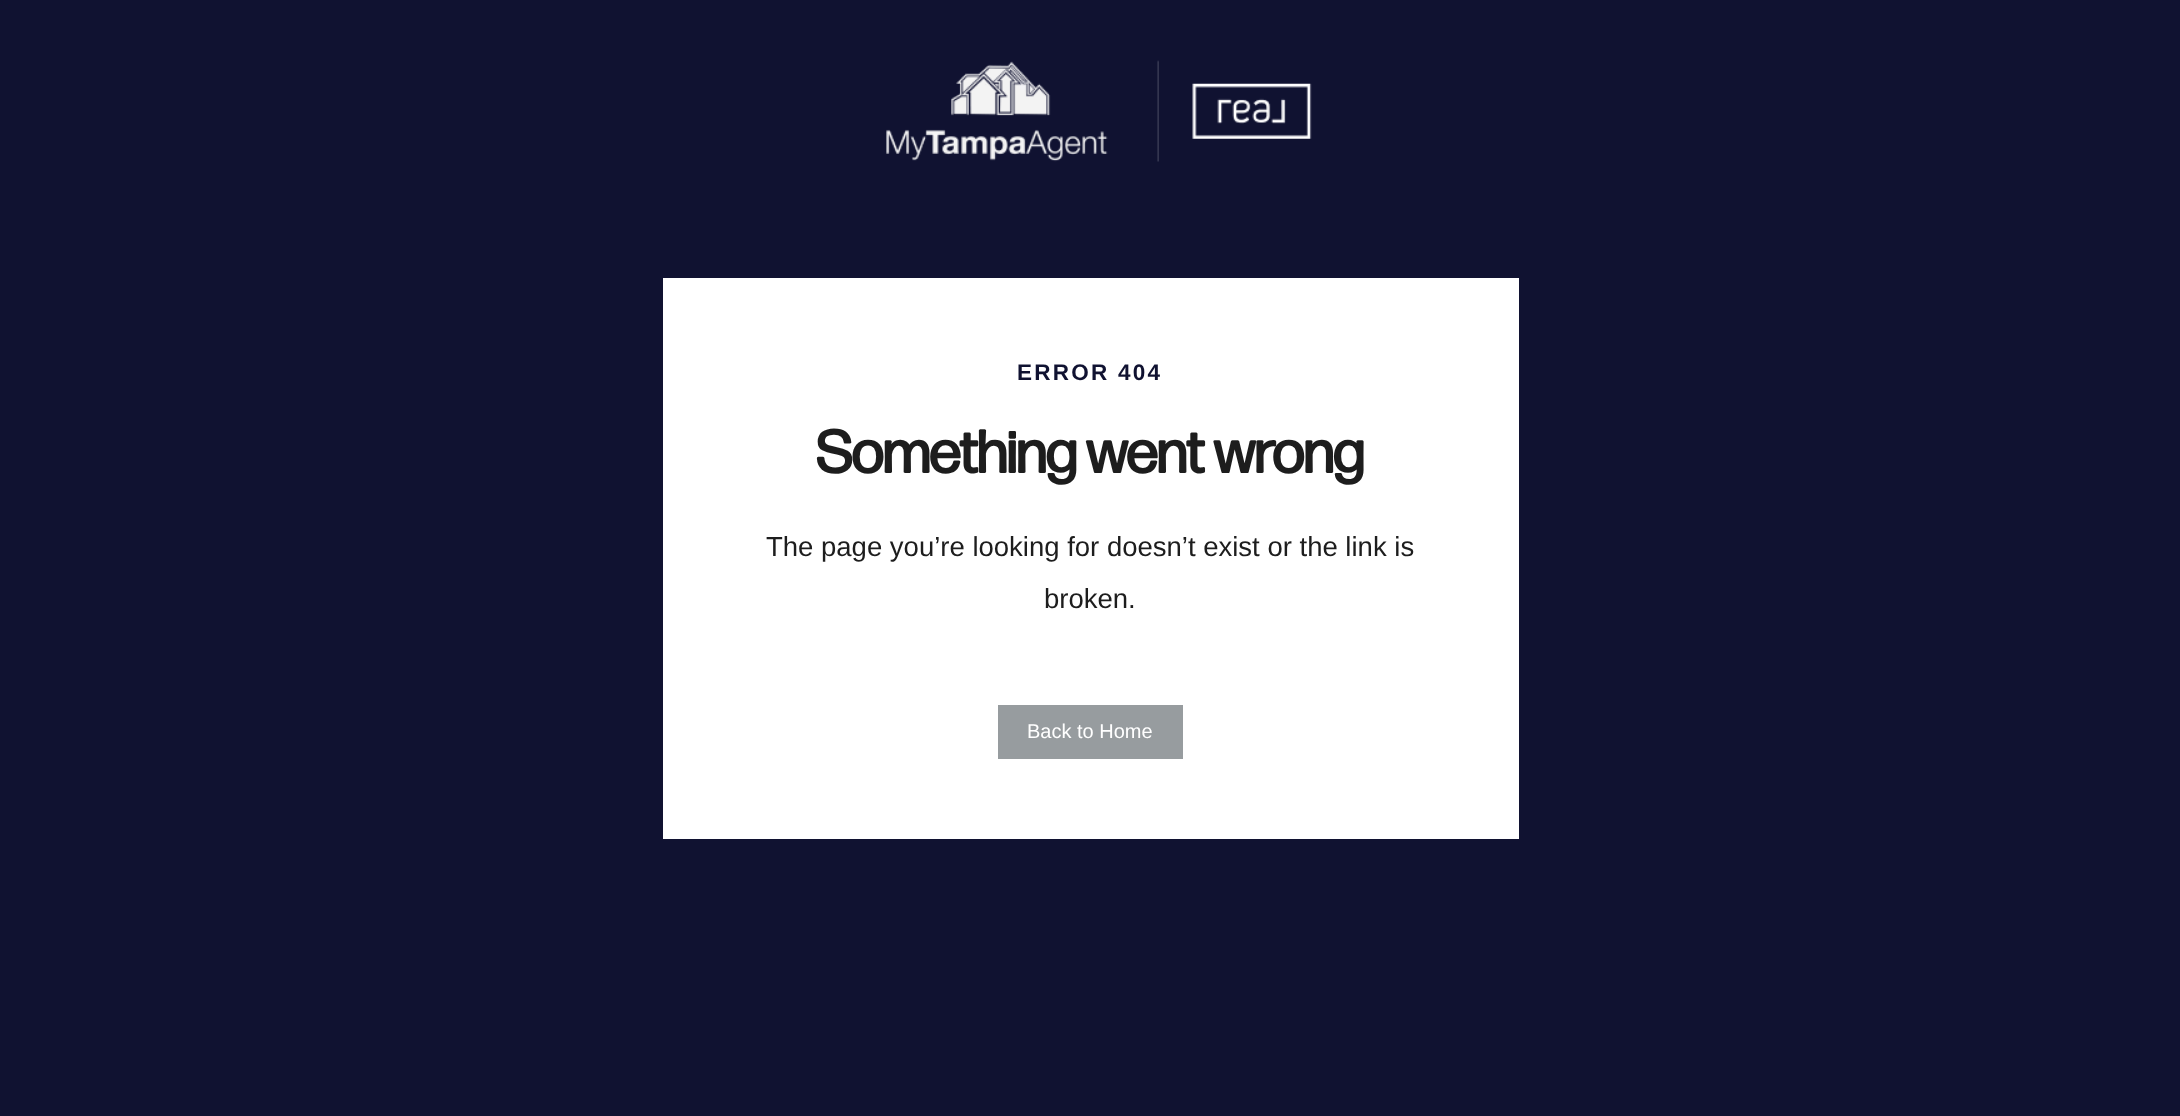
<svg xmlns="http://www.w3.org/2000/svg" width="2180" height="1116">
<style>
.a{font:bold 22.5px Liberation Sans;letter-spacing:2.25px;fill:#101231}
.b{font:bold 60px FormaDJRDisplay;fill:#1d1d1d}
.c{font:27.5px Liberation Sans;fill:#1d1d1d}
.d{font:20px Liberation Sans;fill:#fff}
</style>
<rect width="100%" height="100%" fill="#101231"/>
<image href="1.png" x="886" y="60" width="426" height="102"/>
<path fill="#fff" d="M663 278h856v561H663z"/>
<path fill="#979c9f" d="M998 705h185v54H998z"/>
<text class="a" x="1017" y="380">ERROR 404</text>
<text class="b" x="816" y="473">Something went wrong</text>
<text class="c" x="766" y="556">The page you’re looking for doesn’t exist or the link is</text>
<text class="c" x="1044" y="608">broken.</text>
<text class="d" x="1027" y="738">Back to Home</text>
</svg>
